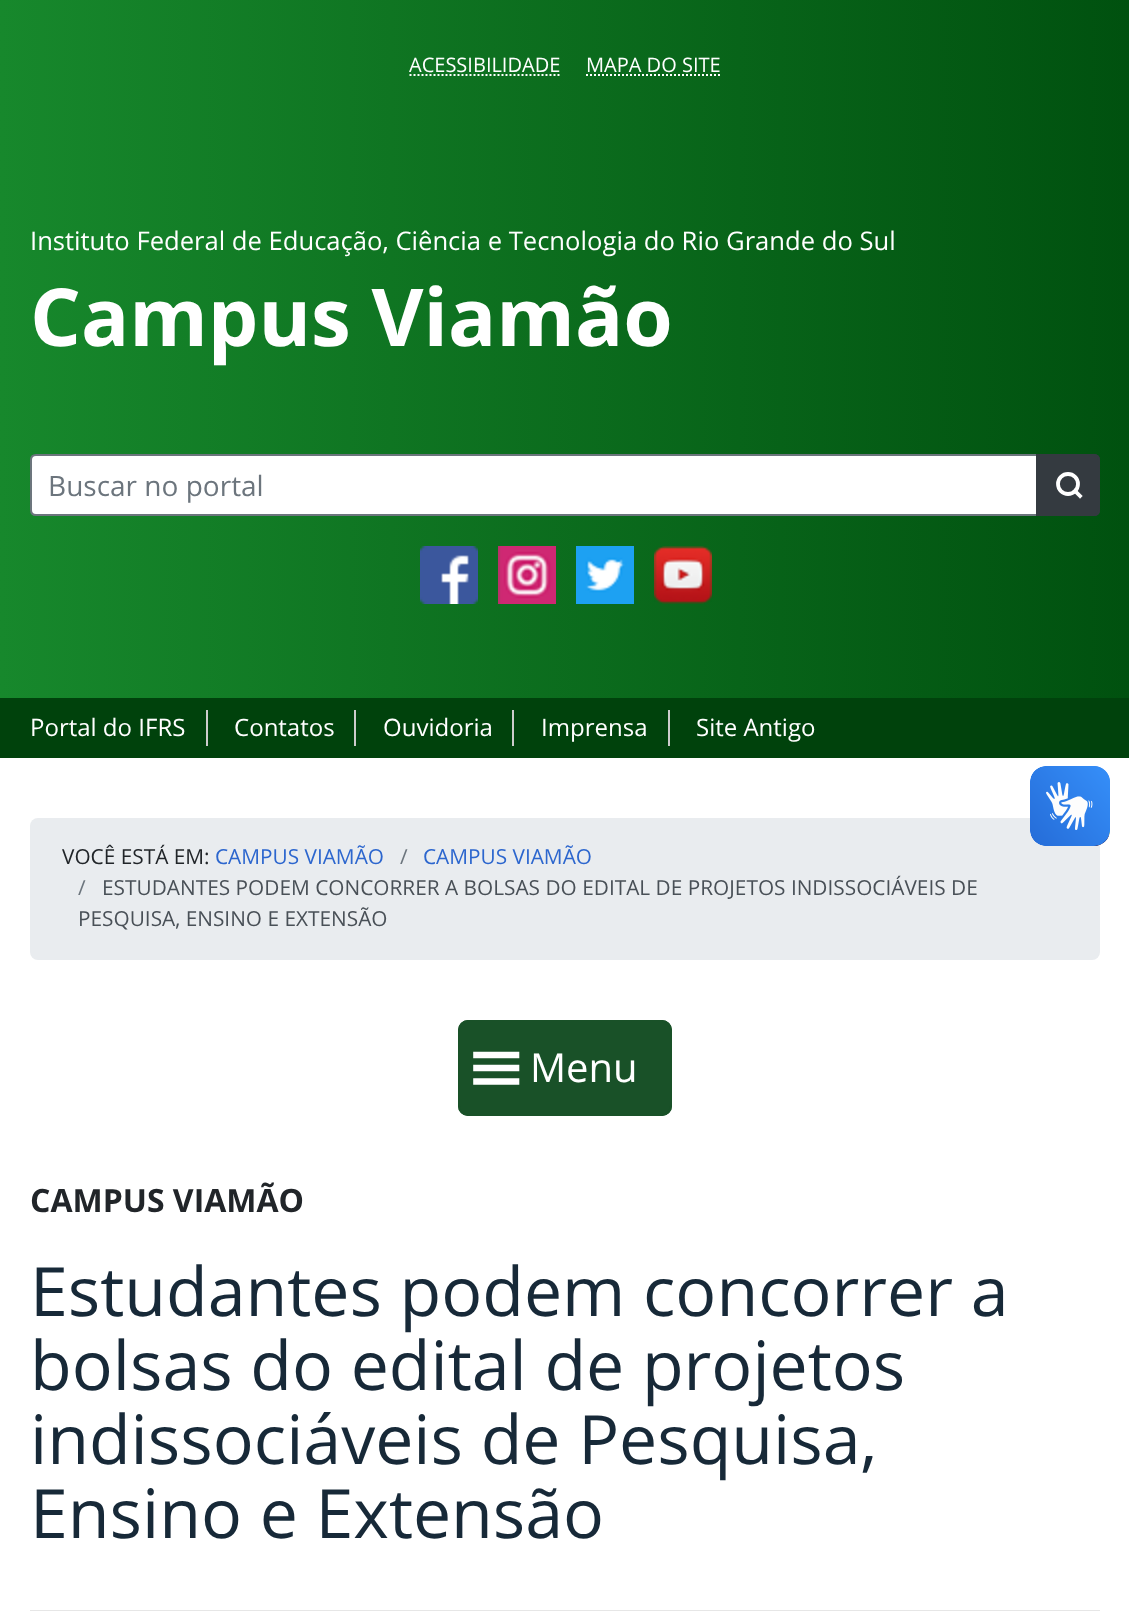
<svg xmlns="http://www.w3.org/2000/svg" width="1129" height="1611">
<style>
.a{font:20px Open Sans;fill:#fff}
.b{font:25.6px Open Sans;fill:#fff}
.c{font:bold 80px Open Sans;fill:#fff}
.d{font:28px Open Sans;fill:#6c757d}
.e{font:24px Open Sans;fill:#fff}
.f{font:20.8px Open Sans;fill:#212529}
.g{font:20.8px Open Sans;fill:#2c66ce}
.h{font:20.8px Open Sans;fill:#6c757d}
.i{font:20.8px Open Sans;fill:#495057}
.j{font:40px Open Sans;fill:#fff}
.k{font:bold 32px Open Sans;fill:#212529}
.l{font:68px Open Sans;fill:#172938}
</style>
<defs>
<linearGradient id="g1" gradientUnits="userSpaceOnUse" x1="0" y1="379" x2="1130" y2="379"><stop offset="0" stop-color="#17882c"/><stop offset="1" stop-color="#00510f"/></linearGradient>
</defs>
<rect width="100%" height="100%" fill="#fff"/>
<path fill="url(#g1)" d="M0 0h1129v698H0z"/>
<path fill="none" stroke="#fff" stroke-width="2" stroke-dasharray="2 2" d="M409.5 75h151"/>
<path fill="none" stroke="#fff" stroke-width="2" stroke-dasharray="2 2" d="M586 75h134.5"/>
<path fill="#fff" stroke="#6c757d" stroke-width="2" d="M36 455h1001v60h-1001c-3 0-5-2-5-5v-50c0-3 2-5 5-5z"/>
<path fill="#343a40" d="M1036 454h58c3.5 0 6 2.5 6 6v50c0 3.5-2.5 6-6 6h-58z"/>
<circle fill="none" stroke="#fff" stroke-width="3.8" cx="1068" cy="484" r="10"/>
<path fill="none" stroke="#fff" stroke-width="3.8" stroke-linecap="square" d="M1080 496l-5-5"/>
<path fill="none" stroke="#343a40" stroke-width="2" d="M1037 455h57c3 0 5 2 5 5v50c0 3-2 5-5 5h-57z"/>
<image href="1.png" x="420" y="546" width="58" height="58"/>
<image href="2.png" x="498" y="546" width="58" height="58"/>
<image href="3.png" x="576" y="546" width="58" height="58"/>
<image href="4.png" x="654" y="546" width="58" height="58"/>
<path fill="#00420c" d="M0 698h1129v60H0z"/>
<path fill="#ccc" d="M206 710h2v36H206z"/>
<path fill="#ccc" d="M354 710h2v36H354z"/>
<path fill="#ccc" d="M512 710h2v36H512z"/>
<path fill="#ccc" d="M668 710h2v36H668z"/>
<rect fill="#e9ecef" x="30" y="818" width="1070" height="142" rx="8"/>
<image href="5.png" x="1030" y="766" width="80" height="80"/>
<image href="6.png" x="1030" y="766" width="80" height="80"/>
<rect fill="#195128" x="458" y="1020" width="214" height="96" rx="10"/>
<path fill="none" stroke="#fff" stroke-width="6.6" stroke-linecap="square" d="M476.5 1068h39.5m-39.5-13h39.5m-39.5 26.5h39.5"/>
<rect fill="none" stroke="#195128" stroke-width="2" x="459" y="1021" width="212" height="94" rx="9"/>
<path fill="#e6e6e6" d="M30 1610h1070v1H30z"/>
<text class="a" x="409" y="72">ACESSIBILIDADE</text>
<text class="a" x="586" y="72">MAPA DO SITE</text>
<text class="b" x="30" y="250">Instituto Federal de Educação, Ciência e Tecnologia do Rio Grande do Sul</text>
<text class="c" x="30" y="346">Campus Viamão</text>
<text class="d" x="48" y="496">Buscar no portal</text>
<text class="e" x="30" y="736">Portal do IFRS</text>
<text class="e" x="234" y="736">Contatos</text>
<text class="e" x="383" y="736">Ouvidoria</text>
<text class="e" x="541" y="736">Imprensa</text>
<text class="e" x="696" y="736">Site Antigo</text>
<text class="f" x="62" y="864">VOCÊ ESTÁ EM:</text>
<text class="g" x="215" y="864">CAMPUS VIAMÃO</text>
<text class="h" x="400" y="864">/</text>
<text class="g" x="423" y="864">CAMPUS VIAMÃO</text>
<text class="h" x="78" y="895">/</text>
<text class="i" x="102" y="895">ESTUDANTES PODEM CONCORRER A BOLSAS DO EDITAL DE PROJETOS INDISSOCIÁVEIS DE</text>
<text class="i" x="78" y="926">PESQUISA, ENSINO E EXTENSÃO</text>
<text class="j" x="530" y="1082">Menu</text>
<text class="k" x="30" y="1212">CAMPUS VIAMÃO</text>
<text class="l" x="30" y="1316">Estudantes podem concorrer a</text>
<text class="l" x="30" y="1390">bolsas do edital de projetos</text>
<text class="l" x="30" y="1464">indissociáveis de Pesquisa,</text>
<text class="l" x="30" y="1538">Ensino e Extensão</text>
</svg>
